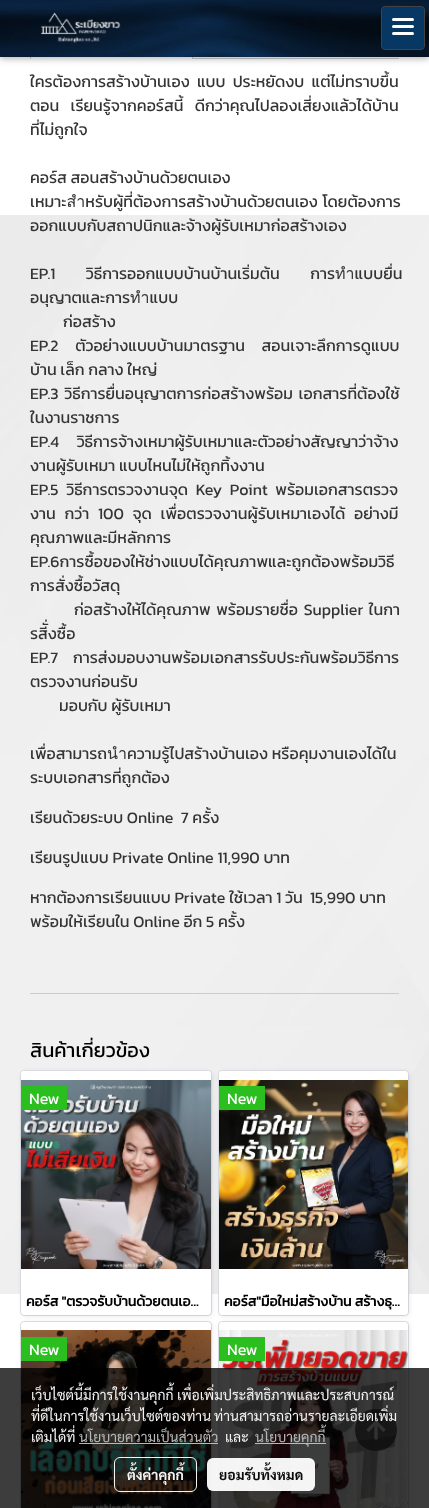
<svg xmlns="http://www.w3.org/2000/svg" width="429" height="1508">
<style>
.a{font:16px Kanit;fill:#343434}
.b{font:20px Kanit;fill:#000}
.c{font:16px Kanit;fill:#fff}
.d{font:bold 14px Kanit;fill:#000}
.e{font:14px Sarabun;fill:#f4f4f4}
.f{font:14px Sarabun;fill:#bab9b9}
.g{font:bold 14px Sarabun;fill:#f4f4f4}
.h{font:bold 14px Sarabun;fill:#0c0c0c}
</style>
<rect width="100%" height="100%" fill="#fff"/>
<image href="1.png" x="0" y="215" width="429" height="1079"/>
<path fill="#ccc" fill-rule="evenodd" d="M34 14h155c2 0 4 2 4 4v41h-163v-41c0-2 2-4 4-4zm0 1h155c2 0 3 1 3 3v41h-161v-41c0-2 1-3 3-3z"/>
<path fill="#ccc" d="M193 58h206v1H193z"/>
<path fill="#0000001f" filter="blur(5px)" d="M0 2h429v57H0z"/>
<path fill="#00000029" filter="blur(2.5px)" d="M0 2h429v57H0z"/>
<image href="2.png" x="0" y="0" width="429" height="57"/>
<image href="3.png" x="40" y="12" width="81" height="31"/>
<rect fill="#073763" stroke="#434343" x="381.5" y="6.5" width="43" height="43" rx="3.5"/>
<rect fill="#fff" x="392" y="25" width="22" height="3" rx="1.5"/>
<rect fill="#fff" x="392" y="18" width="22" height="3" rx="1.5"/>
<rect fill="#fff" x="392" y="32" width="22" height="3" rx="1.5"/>
<path fill="#ccc" d="M30 993h369v1H30z"/>
<rect fill="#fff" stroke="#dee2e6" x="20.5" y="1070.5" width="191" height="245" rx="3.5"/>
<rect fill="#0000001a" filter="blur(2.5px)" x="22" y="1072" width="190" height="244" rx="4"/>
<rect fill="#fff" x="21" y="1071" width="190" height="244" rx="4"/>
<path fill="#fff" d="M25 1071h182c2 0 4 2 4 4v203h-190v-203c0-2 2-4 4-4z"/>
<image href="4.png" x="21" y="1080" width="190" height="189"/>
<path fill="#2bbe1f" d="M21 1086h46v24H21z"/>
<rect fill="#fff" stroke="#dee2e6" x="218.5" y="1070.5" width="190" height="245" rx="3.5"/>
<rect fill="#0000001a" filter="blur(2.5px)" x="220" y="1072" width="189" height="244" rx="4"/>
<rect fill="#fff" x="219" y="1071" width="189" height="244" rx="4"/>
<path fill="#fff" d="M223 1071h181c2 0 4 2 4 4v203h-189v-203c0-2 2-4 4-4z"/>
<image href="5.png" x="219" y="1080" width="189" height="189"/>
<path fill="#2bbe1f" d="M219 1086h46v24H219z"/>
<rect fill="none" stroke="#dee2e6" x="20.5" y="1321.5" width="191" height="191" rx="3.5"/>
<rect fill="#0000001a" filter="blur(2.5px)" x="22" y="1323" width="190" height="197" rx="4"/>
<path fill="#fff" d="M25 1322h182c2 0 4 2 4 4v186h-190v-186c0-2 2-4 4-4z"/>
<image href="6.png" x="21" y="1330" width="190" height="178"/>
<path fill="#2bbe1f" d="M21 1337h46v24H21z"/>
<rect fill="none" stroke="#dee2e6" x="218.5" y="1321.5" width="190" height="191" rx="3.5"/>
<rect fill="#0000001a" filter="blur(2.5px)" x="220" y="1323" width="189" height="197" rx="4"/>
<path fill="#fff" d="M223 1322h181c2 0 4 2 4 4v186h-189v-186c0-2 2-4 4-4z"/>
<image href="7.png" x="219" y="1330" width="189" height="178"/>
<path fill="#2bbe1f" d="M219 1337h46v24H219z"/>
<path fill="#2b2a2ab3" d="M376 1409c-28 0-28 42 0 42c28 0 28-42 0-42z"/>
<image href="8.png" x="366" y="1420" width="20" height="20"/>
<path fill="#000000c2" d="M0 1368h429v140H0z"/>
<path fill="#c2c2c2f2" d="M79 1443h139v1H79z"/>
<path fill="#c2c2c2f2" d="M255 1443h71v1H255z"/>
<rect fill="none" stroke="#fffffff2" x="114.5" y="1457.5" width="82" height="34" rx="5.5"/>
<rect fill="#fffffff2" x="207" y="1458" width="108" height="33" rx="6"/>
<text class="a" x="30" y="87" word-spacing="3.5">ใครต้องการสร้างบ้านเอง แบบ ประหยัดงบ แต่ไม่ทราบขึ้น</text>
<text class="a" xml:space="preserve" x="30" y="111" word-spacing="2">ตอน  เรียนรู้จากคอร์สนี้  ดีกว่าคุณไปลองเสี่ยงแล้วได้บ้าน</text>
<text class="a" x="30" y="135">ที่ไม่ถูกใจ</text>
<text class="a" x="30" y="183">คอร์ส สอนสร้างบ้านด้วยตนเอง</text>
<text class="a" x="30" y="207" word-spacing="1">เหมาะสำหรับผู้ที่ต้องการสร้างบ้านด้วยตนเอง โดยต้องการ</text>
<text class="a" x="30" y="231">ออกแบบกับสถาปนิกและจ้างผู้รับเหมาก่อสร้างเอง</text>
<text class="a" xml:space="preserve" x="30" y="279" word-spacing="11.5">EP.1  วิธีการออกแบบบ้านบ้านเริ่มต้น  การทำแบบยื่น</text>
<text class="a" x="30" y="303">อนุญาตและการทำแบบ</text>
<text class="a" x="63" y="327">ก่อสร้าง</text>
<text class="a" x="30" y="351" word-spacing="13">EP.2 ตัวอย่างแบบบ้านมาตรฐาน สอนเจาะลึกการดูแบบ</text>
<text class="a" x="30" y="375">บ้าน เล็ก กลาง ใหญ่</text>
<text class="a" x="30" y="399" word-spacing="2">EP.3 วิธีการยื่นอนุญาตการก่อสร้างพร้อม เอกสารที่ต้องใช้</text>
<text class="a" x="30" y="423">ในงานราชการ</text>
<text class="a" x="30" y="447" word-spacing="14">EP.4 วิธีการจ้างเหมาผู้รับเหมาและตัวอย่างสัญญาว่าจ้าง</text>
<text class="a" x="30" y="471">งานผู้รับเหมา แบบไหนไม่ให้ถูกทิ้งงาน</text>
<text class="a" x="30" y="495" word-spacing="4">EP.5 วิธีการตรวจงานจุด Key Point พร้อมเอกสารตรวจ</text>
<text class="a" x="30" y="519" word-spacing="5">งาน กว่า 100 จุด เพื่อตรวจงานผู้รับเหมาเองได้ อย่างมี</text>
<text class="a" x="30" y="543">คุณภาพและมีหลักการ</text>
<text class="a" x="30" y="567">EP.6การซื้อของให้ช่างแบบได้คุณภาพและถูกต้องพร้อมวิธี</text>
<text class="a" x="30" y="591">การสั่งซื้อวัสดุ</text>
<text class="a" x="74" y="615" word-spacing="2">ก่อสร้างให้ได้คุณภาพ พร้อมรายชื่อ Supplier ในกา</text>
<text class="a" x="30" y="639">รสีั่งซื้อ</text>
<text class="a" x="30" y="663" word-spacing="11">EP.7 การส่งมอบงานพร้อมเอกสารรับประกันพร้อมวิธีการ</text>
<text class="a" x="30" y="687">ตรวจงานก่อนรับ</text>
<text class="a" x="59" y="711">มอบกับ ผู้รับเหมา</text>
<text class="a" x="30" y="759">เพื่อสามารถนำความรู้ไปสร้างบ้านเอง หรือคุมงานเองได้ใน</text>
<text class="a" x="30" y="783">ระบบเอกสารที่ถูกต้อง</text>
<text class="a" xml:space="preserve" x="30" y="823">เรียนด้วยระบบ Online  7 ครั้ง</text>
<text class="a" x="30" y="863">เรียนรูปแบบ Private Online 11,990 บาท</text>
<text class="a" xml:space="preserve" x="30" y="903">หากต้องการเรียนแบบ Private ใช้เวลา 1 วัน  15,990 บาท</text>
<text class="a" x="30" y="927">พร้อมให้เรียนใน Online อีก 5 ครั้ง</text>
<text class="b" x="30" y="1057">สินค้าเกี่ยวข้อง</text>
<text class="c" x="29" y="1104">New</text>
<text class="d" x="26" y="1306">คอร์ส "ตรวจรับบ้านด้วยตนเอ…</text>
<text class="c" x="227" y="1104">New</text>
<text class="d" x="224" y="1306">คอร์ส"มือใหม่สร้างบ้าน สร้างธุ…</text>
<text class="c" x="29" y="1355">New</text>
<text class="c" x="227" y="1355">New</text>
<text class="e" x="31" y="1400">เว็บไซต์นี้มีการใช้งานคุกกี้ เพื่อเพิ่มประสิทธิภาพและประสบการณ์</text>
<text class="e" x="31" y="1421">ที่ดีในการใช้งานเว็บไซต์ของท่าน</text>
<text class="e" x="214" y="1421">ท่านสามารถอ่านรายละเอียดเพิ่ม</text>
<text class="e" x="31" y="1442">เติมได้ที่</text>
<text class="f" x="79" y="1442">นโยบายความเป็นส่วนตัว</text>
<text class="e" x="225" y="1442">และ</text>
<text class="f" x="255" y="1442">นโยบายคุกกี้</text>
<text class="g" x="127" y="1480">ตั้งค่าคุกกี้</text>
<text class="h" x="219" y="1480">ยอมรับทั้งหมด</text>
</svg>
